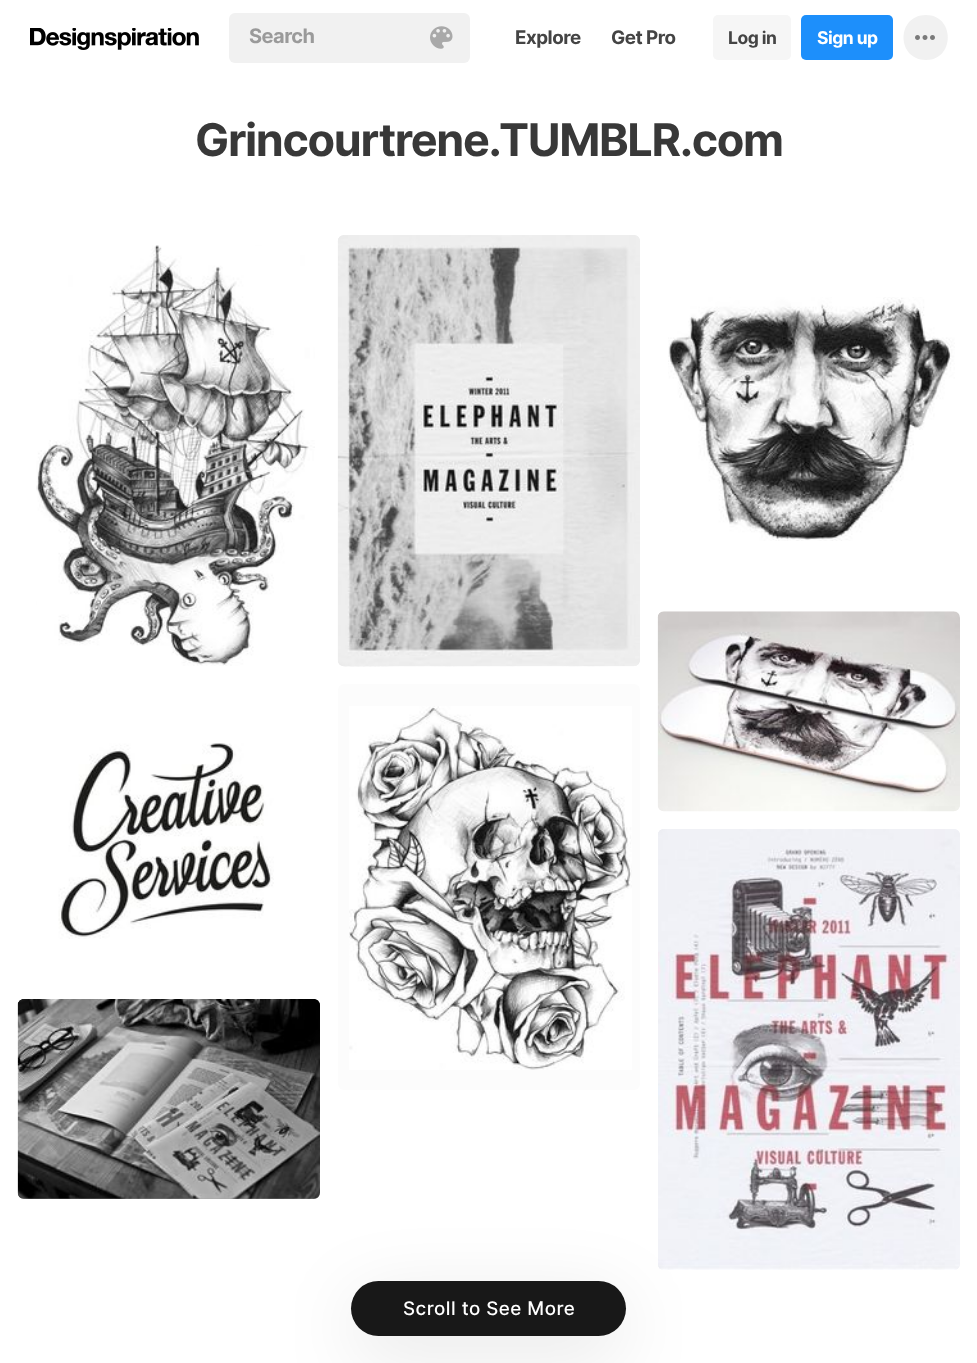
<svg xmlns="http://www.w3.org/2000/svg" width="977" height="1363">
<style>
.a{font:bold 20px Inter;letter-spacing:-0.5px;fill:#9a9a9a}
.b{font:bold 18.75px Inter;letter-spacing:-0.5px;fill:#444}
.c{font:bold 17.5px Inter;letter-spacing:-0.5px;fill:#444}
.d{font:bold 17.5px Inter;letter-spacing:-0.5px;fill:#fff}
.e{font:bold 45px Inter;letter-spacing:-1.35px;fill:#383838}
.f{font:500 18.75px Inter;letter-spacing:0.5px;fill:#fff}
</style>
<rect width="100%" height="100%" fill="#fff"/>
<image href="1.png" x="30" y="28" width="169" height="22"/>
<rect fill="#f1f1f1" x="229" y="13" width="241" height="50" rx="6"/>
<image href="2.png" x="430" y="26" width="23" height="23"/>
<rect fill="#f6f6f6" x="713" y="15" width="78" height="45" rx="5"/>
<rect fill="#1d8ffb" x="801" y="15" width="92" height="45" rx="5"/>
<path fill="#f1f1f1" d="M926 15c29 0 29 45 0 45c-30 0-30-45 0-45z"/>
<image href="3.png" x="915" y="35" width="20" height="5"/>
<image href="4.png" x="36" y="245" width="279" height="421"/>
<rect fill="#eaeaea" x="338" y="235" width="302" height="431" rx="6"/>
<image href="5.png" x="337" y="235" width="303" height="432"/>
<image href="6.png" x="668" y="297" width="287" height="244"/>
<image href="7.png" x="58" y="743" width="216" height="196"/>
<rect fill="#fcfcfc" x="338" y="684" width="302" height="406" rx="6"/>
<image href="8.png" x="349" y="706" width="283" height="364"/>
<rect fill="#f6f5f4" x="658" y="611" width="302" height="200" rx="6"/>
<image href="9.png" x="657" y="611" width="303" height="201"/>
<rect fill="#9e9e9e" x="18" y="999" width="302" height="200" rx="6"/>
<image href="10.png" x="17" y="999" width="303" height="200"/>
<rect fill="#f1f1f6" x="658" y="829" width="302" height="441" rx="6"/>
<image href="11.png" x="658" y="829" width="302" height="441"/>
<rect fill="#0000001a" filter="blur(37.5px)" x="351" y="1299" width="275" height="55" rx="27.5"/>
<rect fill="#181818" x="351" y="1281" width="275" height="55" rx="27.5"/>
<text class="a" x="249" y="43">Search</text>
<text class="b" x="515" y="44">Explore</text>
<text class="b" x="611" y="44">Get Pro</text>
<text class="c" x="728" y="44">Log in</text>
<text class="d" x="817" y="44">Sign up</text>
<text class="e" x="195" y="156">Grincourtrene.TUMBLR.com</text>
<text class="f" x="403" y="1315">Scroll to See More</text>
</svg>
